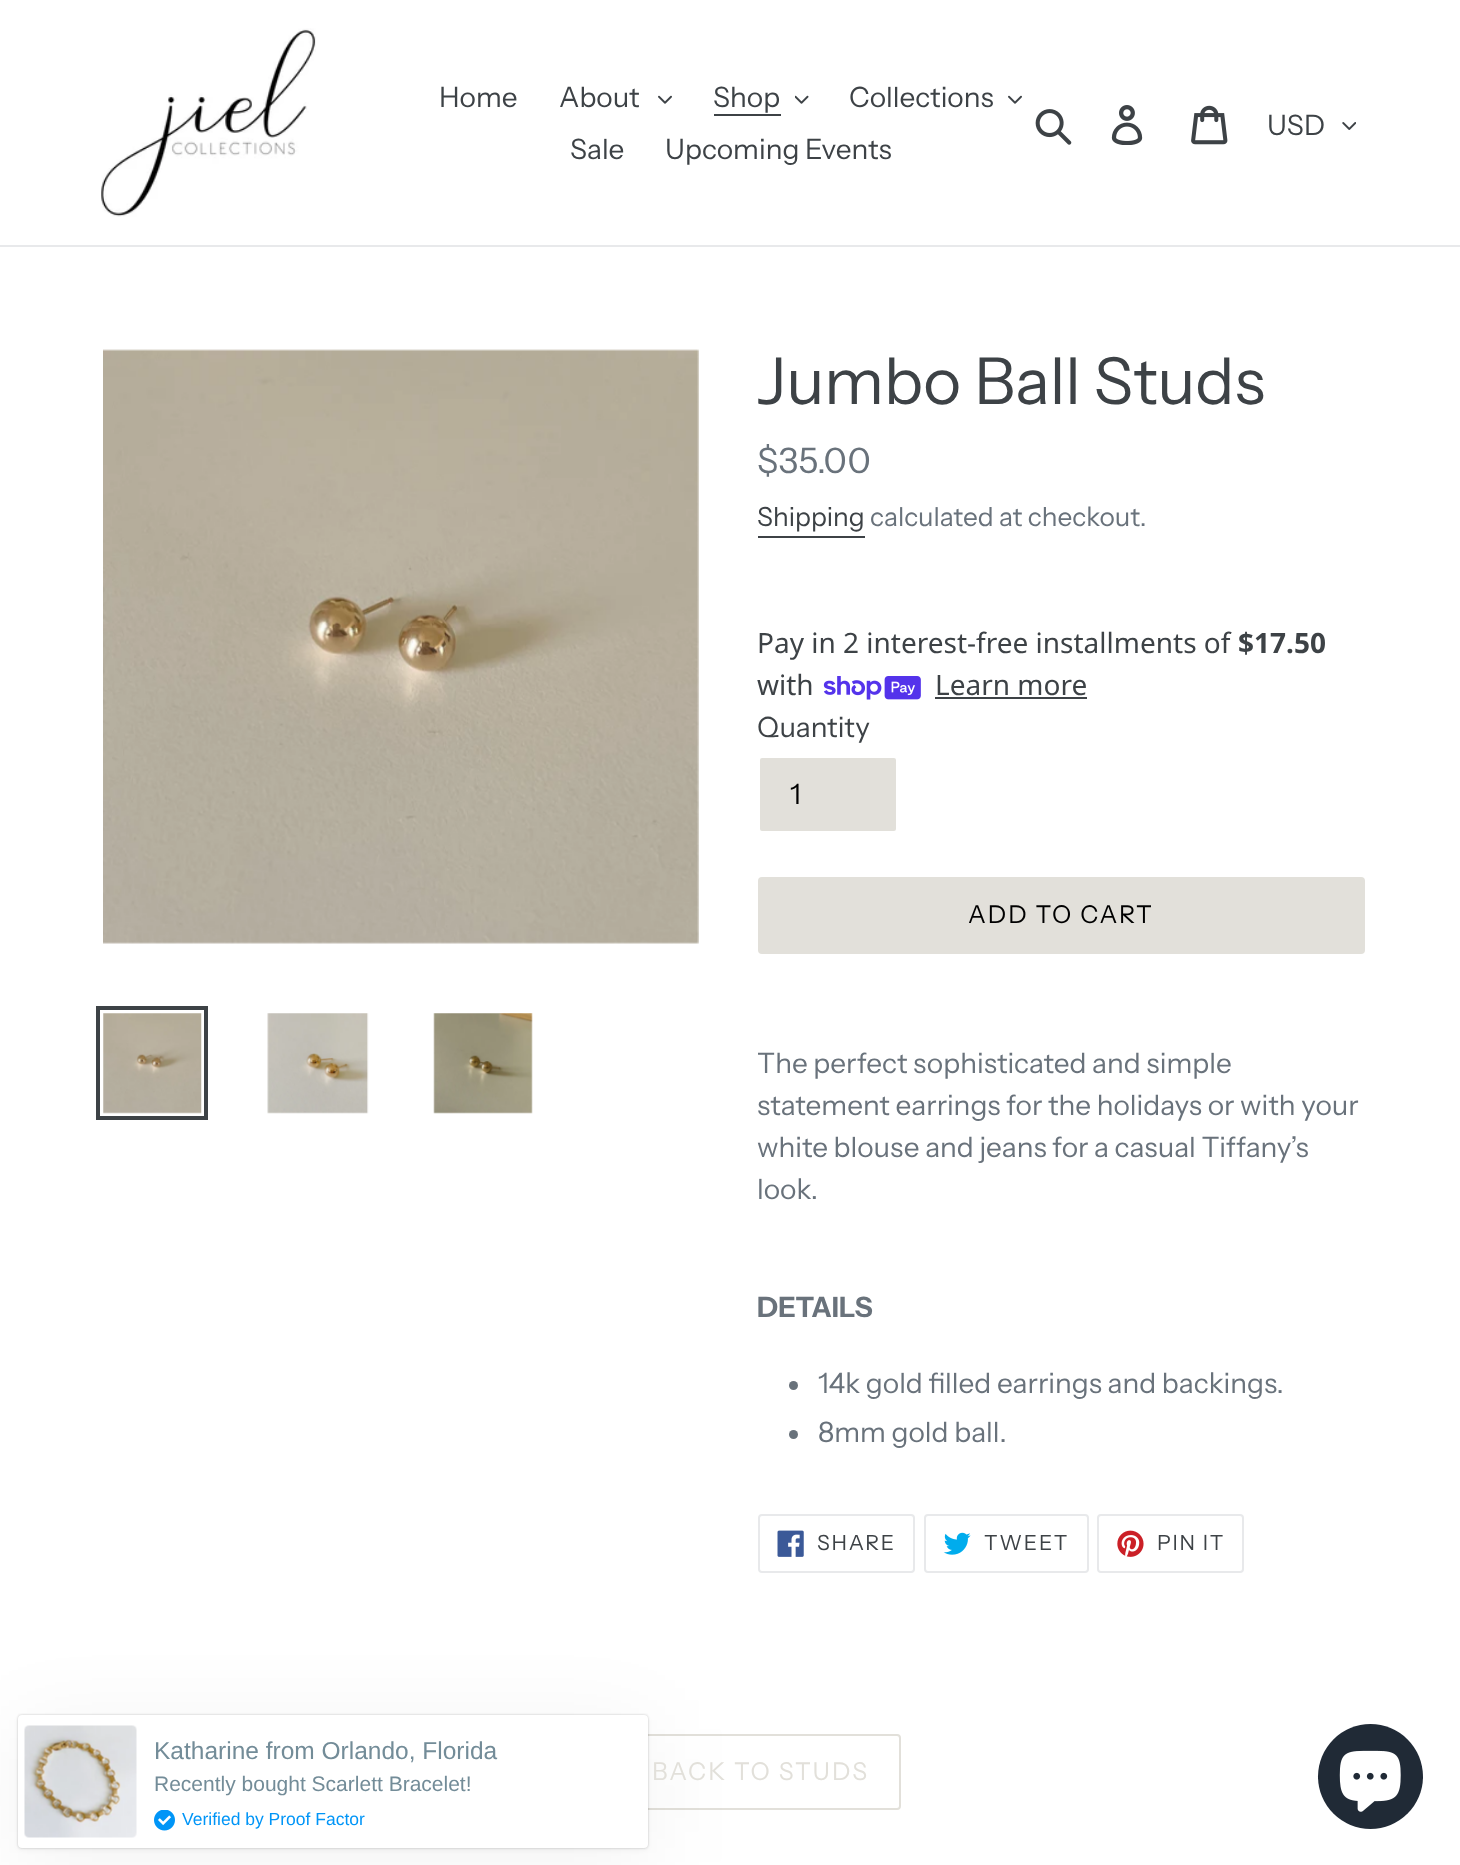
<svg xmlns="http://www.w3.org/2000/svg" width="1460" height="1865">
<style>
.a{font:28px Instrument Sans;fill:#3d4246}
.b{font:24.5px Liberation Sans;fill:#738c98}
.c{font:21px Liberation Sans;fill:#738c98}
.d{font:17.5px Liberation Sans;fill:#0095f7}
.e{font:64.75px Instrument Sans;fill:#3d4246}
.f{font:35px Instrument Sans;fill:#69727b}
.g{font:26.25px Instrument Sans;fill:#3d4246}
.h{font:26.25px Instrument Sans;fill:#69727b}
.i{font:28px Noto Sans;fill:#3d4246}
.j{font:bold 28px Noto Sans;fill:#3d4246}
.k{font:28px Instrument Sans;fill:#000}
.l{font:24.5px Instrument Sans;letter-spacing:2px;fill:#000}
.m{font:28px Instrument Sans;fill:#69727b}
.n{font:bold 28px Instrument Sans;fill:#69727b}
.o{font:21px Instrument Sans;letter-spacing:1.75px;fill:#3d4246}
.p{font:24.5px Instrument Sans;letter-spacing:2px;fill:#e2e0da}
</style>
<rect width="100%" height="100%" fill="#fff"/>
<path fill="#e8e9eb" d="M0 245h1460v2H0z"/>
<image href="1.png" x="101" y="28" width="215" height="189"/>
<image href="2.png" x="658" y="95" width="14" height="9"/>
<path fill="#3d4246" d="M714 114h67v2H714z"/>
<image href="3.png" x="795" y="95" width="14" height="9"/>
<image href="2.png" x="1008" y="95" width="14" height="9"/>
<image href="4.png" x="1035" y="109" width="37" height="36"/>
<image href="5.png" x="1111" y="105" width="32" height="40"/>
<image href="6.png" x="1191" y="105" width="37" height="40"/>
<image href="7.png" x="1342" y="122" width="14" height="8"/>
<rect fill="none" stroke="#e2e0da" stroke-width="2" x="561" y="1735" width="339" height="74" rx="3"/>
<rect fill="#0000000d" filter="blur(44px)" x="18" y="1729" width="630" height="133" rx="4"/>
<rect fill="#0000000d" filter="blur(2px)" x="18" y="1717" width="630" height="133" rx="4"/>
<rect fill="#00000033" filter="blur(1px)" x="18" y="1715" width="630" height="133" rx="4"/>
<rect fill="#fff" x="18" y="1715" width="630" height="133" rx="4"/>
<image href="8.png" x="24" y="1725" width="113" height="113"/>
<image href="9.png" x="154" y="1810" width="21" height="21"/>
<image href="10.png" x="103" y="349" width="596" height="595"/>
<path fill="none" stroke="#3d4246" stroke-width="4" d="M98 1008h108v110H98z"/>
<image href="11.png" x="103" y="1013" width="99" height="101"/>
<image href="12.png" x="267" y="1013" width="102" height="101"/>
<image href="13.png" x="433" y="1013" width="100" height="101"/>
<path fill="#3d4246" d="M758 536h107v2H758z"/>
<image href="14.png" x="823" y="676" width="98" height="24"/>
<path fill="#3d4246" d="M935 697h152v2H935z"/>
<rect fill="#e2e0da" stroke="#fff" stroke-width="2" x="759" y="757" width="138" height="75" rx="3"/>
<rect fill="#e2e0da" x="758" y="877" width="607" height="77" rx="4"/>
<circle fill="#69727b" cx="793.5" cy="1385.5" r="4.5"/>
<circle fill="#69727b" cx="793.5" cy="1434.5" r="4.5"/>
<rect fill="none" stroke="#e8e9eb" stroke-width="2" x="759" y="1515" width="155" height="57" rx="3"/>
<image href="15.png" x="777" y="1530" width="27" height="27"/>
<rect fill="none" stroke="#e8e9eb" stroke-width="2" x="925" y="1515" width="163" height="57" rx="3"/>
<image href="16.png" x="943" y="1532" width="28" height="23"/>
<rect fill="none" stroke="#e8e9eb" stroke-width="2" x="1098" y="1515" width="145" height="57" rx="3"/>
<image href="17.png" x="1117" y="1530" width="27" height="27"/>
<circle fill="#202a36" cx="1370.5" cy="1776.5" r="52.5"/>
<image href="18.png" x="1339" y="1750" width="62" height="62"/>
<text class="a" x="439" y="107">Home</text>
<text class="a" x="559" y="107">About</text>
<text class="a" x="713" y="107">Shop</text>
<text class="a" x="849" y="107">Collections</text>
<text class="a" x="570" y="159">Sale</text>
<text class="a" x="665" y="159">Upcoming Events</text>
<text class="a" x="1267" y="135">USD</text>
<text class="b" x="154" y="1759">Katharine from Orlando, Florida</text>
<text class="c" x="154" y="1791">Recently bought Scarlett Bracelet!</text>
<text class="d" x="182" y="1825">Verified by Proof Factor</text>
<text class="e" x="757" y="404">Jumbo Ball Studs</text>
<text class="f" x="757" y="473">$35.00</text>
<text class="g" x="757" y="526">Shipping</text>
<text class="h" x="870" y="526">calculated at checkout.</text>
<text class="i" x="757" y="653">Pay in 2 interest-free installments of</text>
<text class="j" x="1238" y="653">$17.50</text>
<text class="i" x="757" y="695">with</text>
<text class="i" x="935" y="695">Learn more</text>
<text class="a" x="757" y="737">Quantity</text>
<text class="k" x="790" y="804">1</text>
<text class="l" x="968" y="923">ADD TO CART</text>
<text class="m" x="757" y="1073">The perfect sophisticated and simple</text>
<text class="m" x="757" y="1115">statement earrings for the holidays or with your</text>
<text class="m" x="757" y="1157">white blouse and jeans for a casual Tiffany’s</text>
<text class="m" x="757" y="1199">look.</text>
<text class="n" x="757" y="1317">DETAILS</text>
<text class="m" x="818" y="1393">14k gold filled earrings and backings.</text>
<text class="m" x="818" y="1442">8mm gold ball.</text>
<text class="o" x="817" y="1550">SHARE</text>
<text class="o" x="984" y="1550">TWEET</text>
<text class="o" x="1157" y="1550">PIN IT</text>
<text class="p" x="652" y="1780">BACK TO STUDS</text>
</svg>
